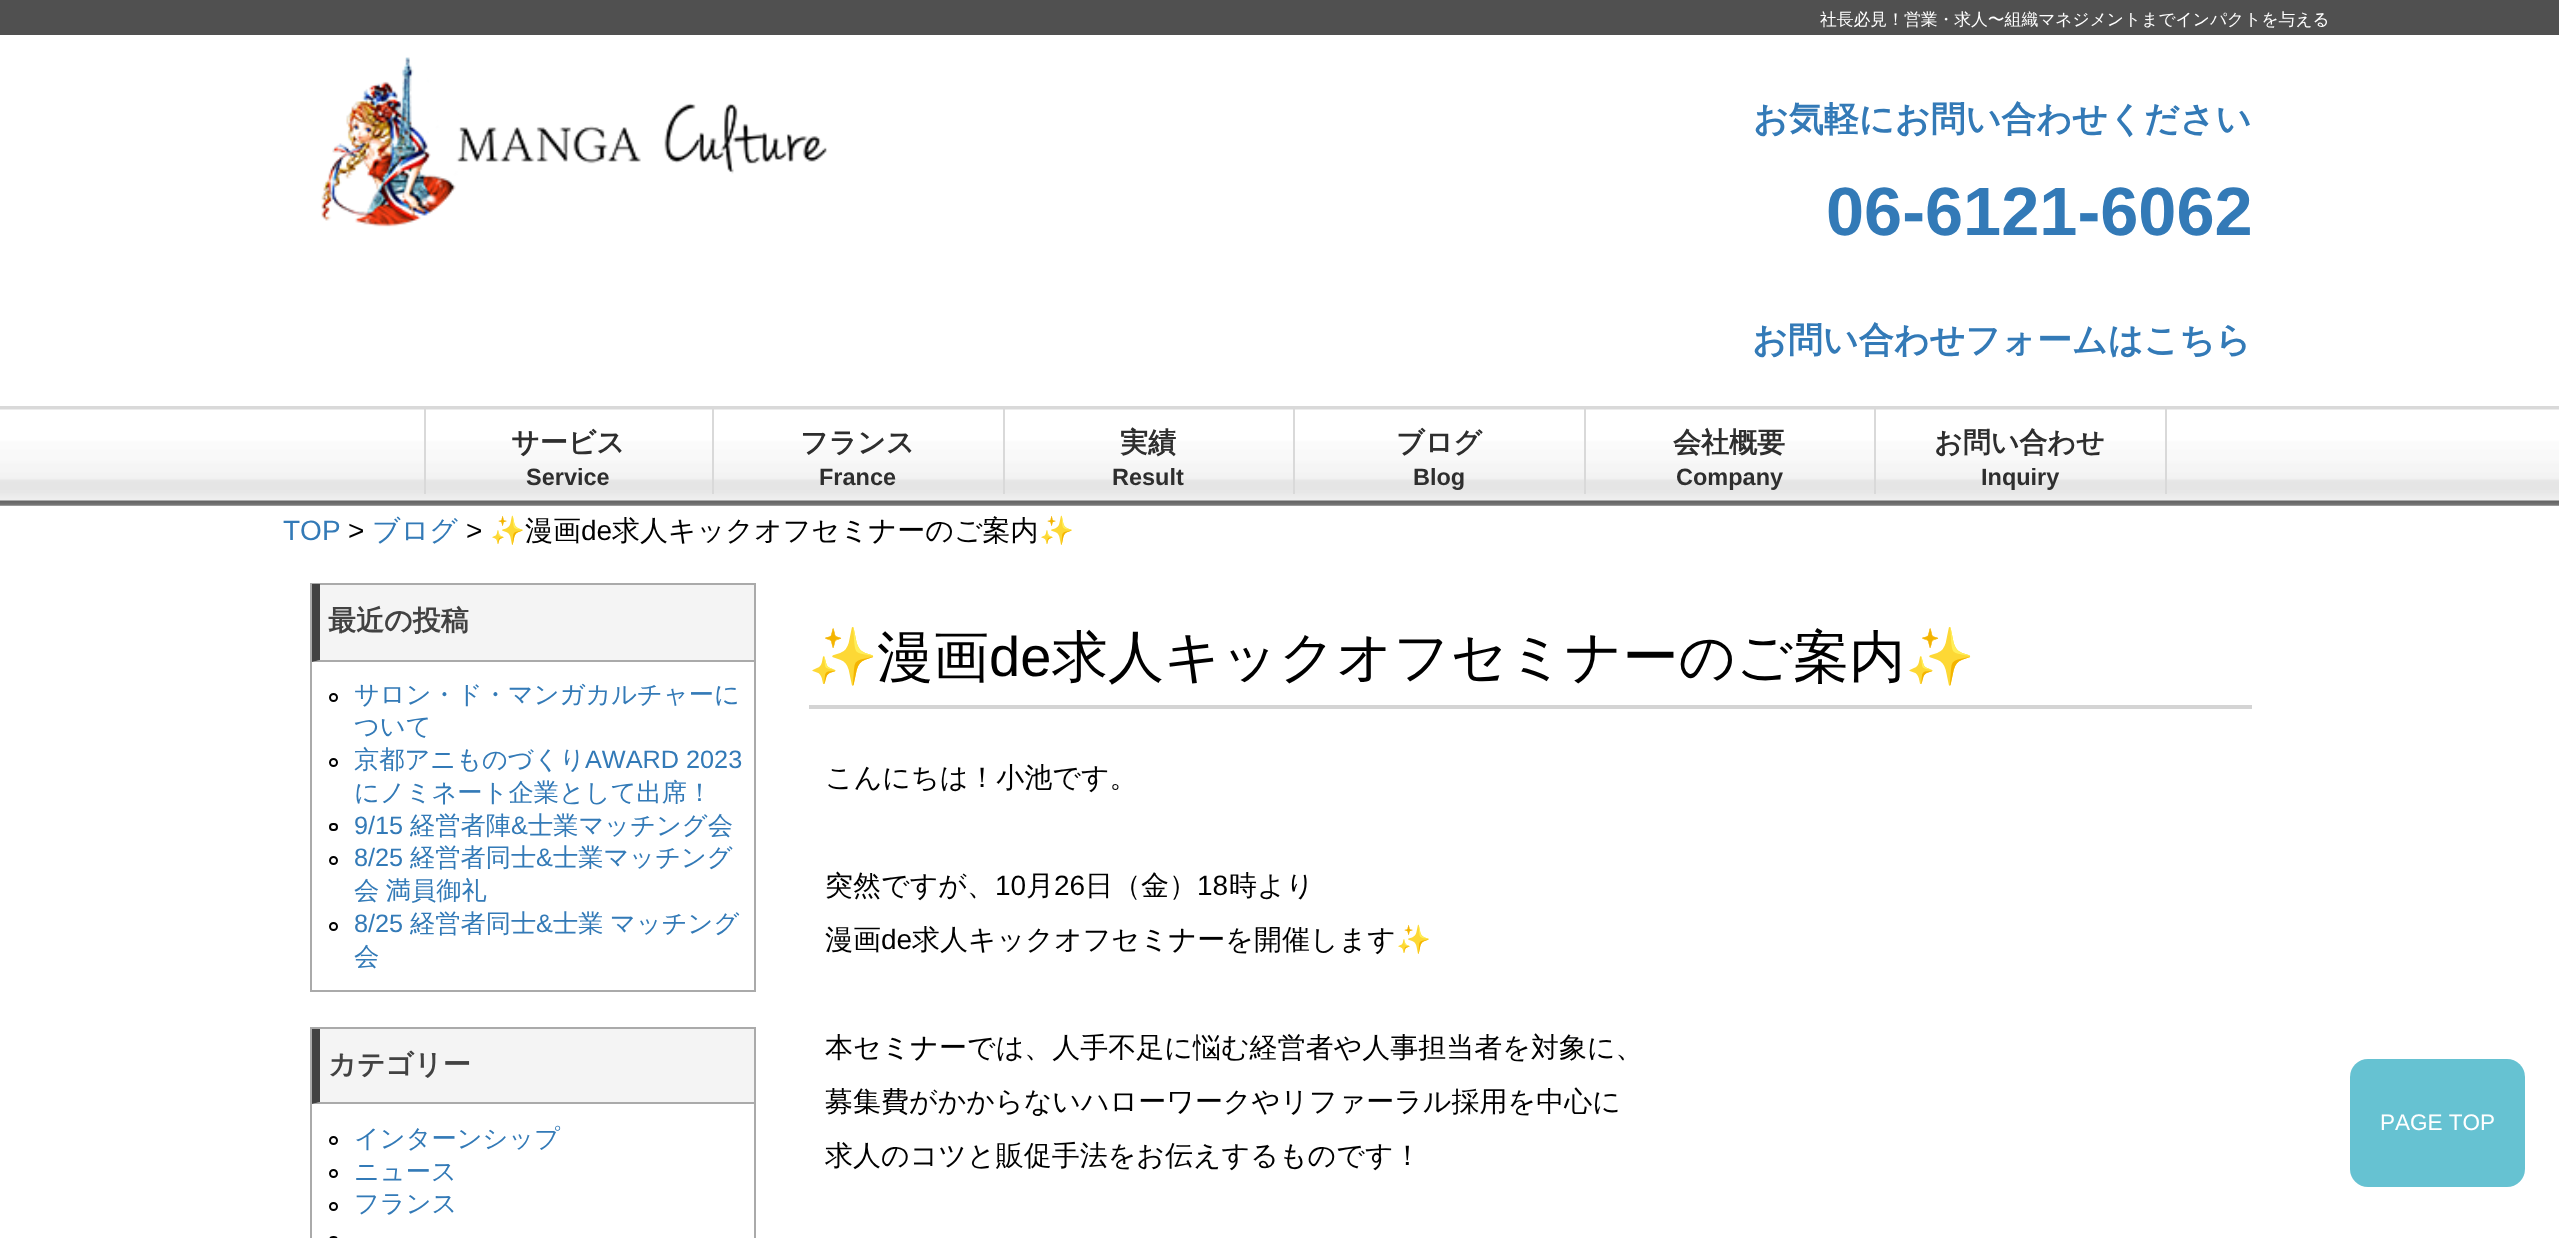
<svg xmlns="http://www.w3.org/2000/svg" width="2559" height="1238">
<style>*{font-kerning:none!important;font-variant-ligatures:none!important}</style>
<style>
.a{font:500 16.8px WenQuanYi Zen Hei;fill:#fff}
.b{font:bold 35px WenQuanYi Zen Hei;fill:#337ab7}
.c{font:bold 68.5px Liberation Sans;fill:#337ab7}
.d{font:bold 28px WenQuanYi Zen Hei;fill:#2e2e2e}
.e{font:bold 23.5px Liberation Sans;fill:#2e2e2e}
.f{font:28px Liberation Sans;fill:#337ab7}
.g{font:28px Liberation Sans;fill:#000}
.h{font:500 28px WenQuanYi Zen Hei;fill:#337ab7}
.i{font:28px Noto Color Emoji;fill:#000}
.j{font:500 28px WenQuanYi Zen Hei;fill:#000}
.k{font:bold 28px WenQuanYi Zen Hei;fill:#424242}
.l{font:500 25.25px WenQuanYi Zen Hei;fill:#337ab7}
.m{font:25.25px Liberation Sans;fill:#337ab7}
.n{font:56px Noto Color Emoji;fill:#000}
.o{font:500 56px WenQuanYi Zen Hei;fill:#000}
.p{font:56px Liberation Sans;fill:#000}
.q{font:22.5px Liberation Sans;fill:#fff}
</style>
<rect width="100%" height="100%" fill="#fff"/>
<path fill="#505050" d="M0 0h2559v35H0z"/>
<image href="1.png" x="321" y="57" width="506" height="170"/>
<image href="2.png" x="0" y="406" width="2559" height="100"/>
<path fill="#d9d9d9" d="M712 406h2v88H712z"/>
<path fill="#d9d9d9" d="M424 406h2v88H424z"/>
<path fill="#d9d9d9" d="M1003 406h2v88H1003z"/>
<path fill="#d9d9d9" d="M1293 406h2v88H1293z"/>
<path fill="#d9d9d9" d="M1584 406h2v88H1584z"/>
<path fill="#d9d9d9" d="M1874 406h2v88H1874z"/>
<path fill="#d9d9d9" d="M2165 406h2v88H2165z"/>
<path fill="none" stroke="#aaa" stroke-width="2" d="M311 584h444v407H311z"/>
<path fill="#f4f4f4" d="M312 585h442v77H312z"/>
<path fill="#aaa" d="M754 662h-442l8-2h434z"/>
<path fill="#424242" d="M312 662v-78h8v76z"/>
<circle fill="none" stroke="#000" stroke-width="2" cx="333.5" cy="697.5" r="3.5"/>
<circle fill="none" stroke="#000" stroke-width="2" cx="333.5" cy="762.5" r="3.5"/>
<rect fill="none" stroke="#000" stroke-width="2" x="330" y="824" width="7" height="6" rx="3"/>
<circle fill="none" stroke="#000" stroke-width="2" cx="333.5" cy="860.5" r="3.5"/>
<circle fill="none" stroke="#000" stroke-width="2" cx="333.5" cy="926.5" r="3.5"/>
<path fill="none" stroke="#aaa" stroke-width="2" d="M311 1028h444v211H311z"/>
<path fill="#f4f4f4" d="M312 1029h442v75H312z"/>
<path fill="#aaa" d="M754 1104h-442l8-2h434z"/>
<path fill="#424242" d="M312 1104v-75h8v73z"/>
<circle fill="none" stroke="#000" stroke-width="2" cx="333.5" cy="1140.5" r="3.5"/>
<circle fill="none" stroke="#000" stroke-width="2" cx="333.5" cy="1173.5" r="3.5"/>
<circle fill="none" stroke="#000" stroke-width="2" cx="333.5" cy="1206.5" r="3.5"/>
<rect fill="none" stroke="#000" stroke-width="2" x="330" y="1237" width="7" height="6" rx="3"/>
<path fill="#d4d4d4" d="M809 705h1443v4H809z"/>
<rect fill="#66c2d2" x="2350" y="1059" width="175" height="128" rx="18"/>
<text class="a" x="1820" y="25">社長必見！営業・求人〜組織マネジメントまでインパクトを与える</text>
<text class="b" x="1753" y="131">お気軽にお問い合わせください</text>
<text class="c" x="1826" y="235">06-6121-6062</text>
<text class="b" x="1752" y="352">お問い合わせフォームはこちら</text>
<text class="d" x="511" y="452">サービス</text>
<text class="e" x="526" y="485">Service</text>
<text class="d" x="800" y="452">フランス</text>
<text class="e" x="819" y="485">France</text>
<text class="d" x="1120" y="452">実績</text>
<text class="e" x="1112" y="485">Result</text>
<text class="d" x="1396" y="452">ブログ</text>
<text class="e" x="1413" y="485">Blog</text>
<text class="d" x="1673" y="452">会社概要</text>
<text class="e" x="1676" y="485">Company</text>
<text class="d" x="1934" y="452">お問い合わせ</text>
<text class="e" x="1981" y="485">Inquiry</text>
<text class="f" x="283" y="540">TOP</text>
<text class="g" x="348" y="540">&gt;</text>
<text class="h" x="372" y="540">ブログ</text>
<text class="g" x="466" y="540">&gt;</text>
<text class="i" x="490" y="540">✨</text>
<text class="j" x="525" y="540">漫画</text>
<text class="g" x="581" y="540">de</text>
<text class="j" x="612" y="540">求人キックオフセミナーのご案内</text>
<text class="i" x="1039" y="540">✨</text>
<text class="k" x="328" y="630">最近の投稿</text>
<text class="l" x="354" y="703">サロン・ド・マンガカルチャーに</text>
<text class="l" x="354" y="735">ついて</text>
<text class="l" x="354" y="768">京都アニものづくり</text>
<text class="m" x="585" y="768">AWARD 2023</text>
<text class="l" x="354" y="801">にノミネート企業として出席！</text>
<text class="m" x="354" y="834">9/15</text>
<text class="l" x="410" y="834">経営者陣</text>
<text class="m" x="511" y="834">&amp;</text>
<text class="l" x="528" y="834">士業マッチング会</text>
<text class="m" x="354" y="866">8/25</text>
<text class="l" x="410" y="866">経営者同士</text>
<text class="m" x="536" y="866">&amp;</text>
<text class="l" x="553" y="866">士業マッチング</text>
<text class="l" x="354" y="899" word-spacing="-1">会 満員御礼</text>
<text class="m" x="354" y="932">8/25</text>
<text class="l" x="410" y="932">経営者同士</text>
<text class="m" x="536" y="932">&amp;</text>
<text class="l" x="553" y="932" word-spacing="-1">士業 マッチング</text>
<text class="l" x="354" y="965">会</text>
<text class="k" x="328" y="1074">カテゴリー</text>
<text class="l" x="354" y="1147">インターンシップ</text>
<text class="l" x="354" y="1180">ニュース</text>
<text class="l" x="354" y="1212">フランス</text>
<text class="n" x="808" y="676">✨</text>
<text class="o" x="877" y="676">漫画</text>
<text class="p" x="989" y="676">de</text>
<text class="o" x="1052" y="676">求人キックオフセミナーのご案内</text>
<text class="n" x="1905" y="676">✨</text>
<text class="j" x="825" y="787">こんにちは！小池です。</text>
<text class="j" x="825" y="895">突然ですが、</text>
<text class="g" x="995" y="895">10</text>
<text class="j" x="1026" y="895">月</text>
<text class="g" x="1054" y="895">26</text>
<text class="j" x="1085" y="895">日（金）</text>
<text class="g" x="1197" y="895">18</text>
<text class="j" x="1229" y="895">時より</text>
<text class="j" x="825" y="949">漫画</text>
<text class="g" x="881" y="949">de</text>
<text class="j" x="912" y="949">求人キックオフセミナーを開催します</text>
<text class="i" x="1396" y="949">✨</text>
<text class="j" x="825" y="1057">本セミナーでは、人手不足に悩む経営者や人事担当者を対象に、</text>
<text class="j" x="825" y="1111">募集費がかからないハローワークやリファーラル採用を中心に</text>
<text class="j" x="825" y="1165">求人のコツと販促手法をお伝えするものです！</text>
<text class="q" x="2380" y="1130">PAGE TOP</text>
</svg>
